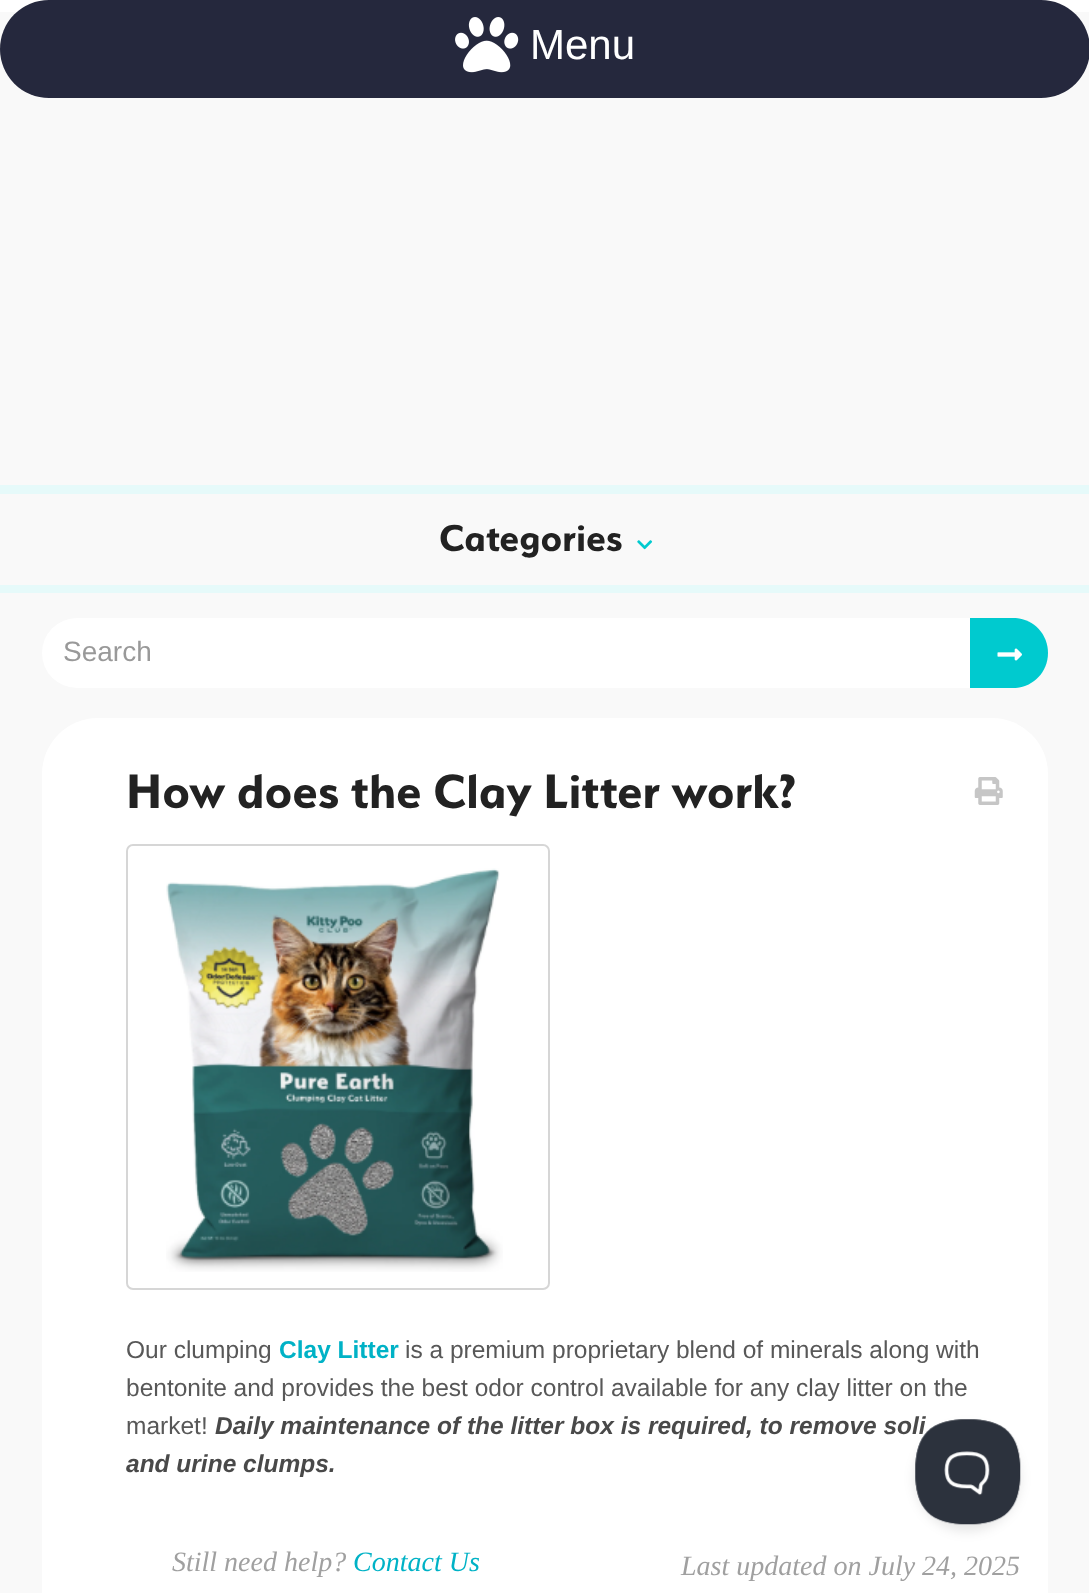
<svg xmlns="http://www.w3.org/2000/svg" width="1089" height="1593">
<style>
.a{font:42px Liberation Sans;fill:#fff}
.b{font:bold 42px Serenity;fill:#222}
.c{font:28px Liberation Sans;fill:#999}
.d{font:bold 53.9px Serenity;fill:#222}
.e{font:24.5px Liberation Sans;fill:#585858}
.f{font:bold 24.5px Liberation Sans;fill:#00b2c6}
.g{font:italic bold 24.5px Liberation Sans;fill:#494949}
.h{font:italic 28px Liberation Serif;fill:#a0a0a0}
.i{font:italic 28px Liberation Serif;fill:#00b2c6}
</style>
<rect width="100%" height="100%" fill="#f9f9f9"/>
<path fill="#fff" d="M0 0h1089v12H0z"/>
<rect fill="#25283d" width="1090" height="98" rx="49"/>
<image href="1.png" x="455" y="17" width="64" height="56"/>
<path fill="#e6fafa" d="M0 485h1089v9H0z"/>
<path fill="#e6fafa" d="M0 585h1089v8H0z"/>
<image href="2.png" x="637" y="540" width="16" height="10"/>
<rect fill="#fff" x="42" y="618" width="1006" height="70" rx="35"/>
<path fill="#00cacf" d="M970 618h43c19.5 0 35 15.5 35 35c0 19.5-15.5 35-35 35h-43z"/>
<image href="3.png" x="997" y="648" width="25" height="13"/>
<rect fill="#fff" x="42" y="718" width="1006" height="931" rx="56"/>
<image href="4.png" x="974" y="777" width="29" height="28"/>
<rect fill="none" stroke="#d6d6d6" stroke-width="2" x="127" y="845" width="422" height="444" rx="6"/>
<image href="5.png" x="166" y="868" width="337" height="404"/>
<rect fill="#0000001a" filter="blur(6px)" x="915" y="1426" width="105" height="105" rx="52.5"/>
<text class="a" x="530" y="59">Menu</text>
<text class="b" x="439" y="551">Categories</text>
<text class="c" x="63" y="661">Search</text>
<text class="d" x="126" y="808">How does the Clay Litter work?</text>
<text class="e" x="126" y="1358">Our clumping</text>
<text class="f" x="279" y="1358">Clay Litter</text>
<text class="e" x="405" y="1358">is a premium proprietary blend of minerals along with</text>
<text class="e" x="126" y="1396">bentonite and provides the best odor control available for any clay litter on the</text>
<text class="e" x="126" y="1434">market!</text>
<text class="g" x="215" y="1434">Daily maintenance of the litter box is required, to remove soli</text>
<text class="g" x="126" y="1472">and urine clumps.</text>
<text class="h" x="172" y="1571">Still need help?</text>
<text class="i" x="353" y="1571">Contact Us</text>
<text class="h" x="681" y="1575">Last updated on July 24, 2025</text>
<image href="6.png" x="915" y="1419" width="106" height="106"/>
</svg>
